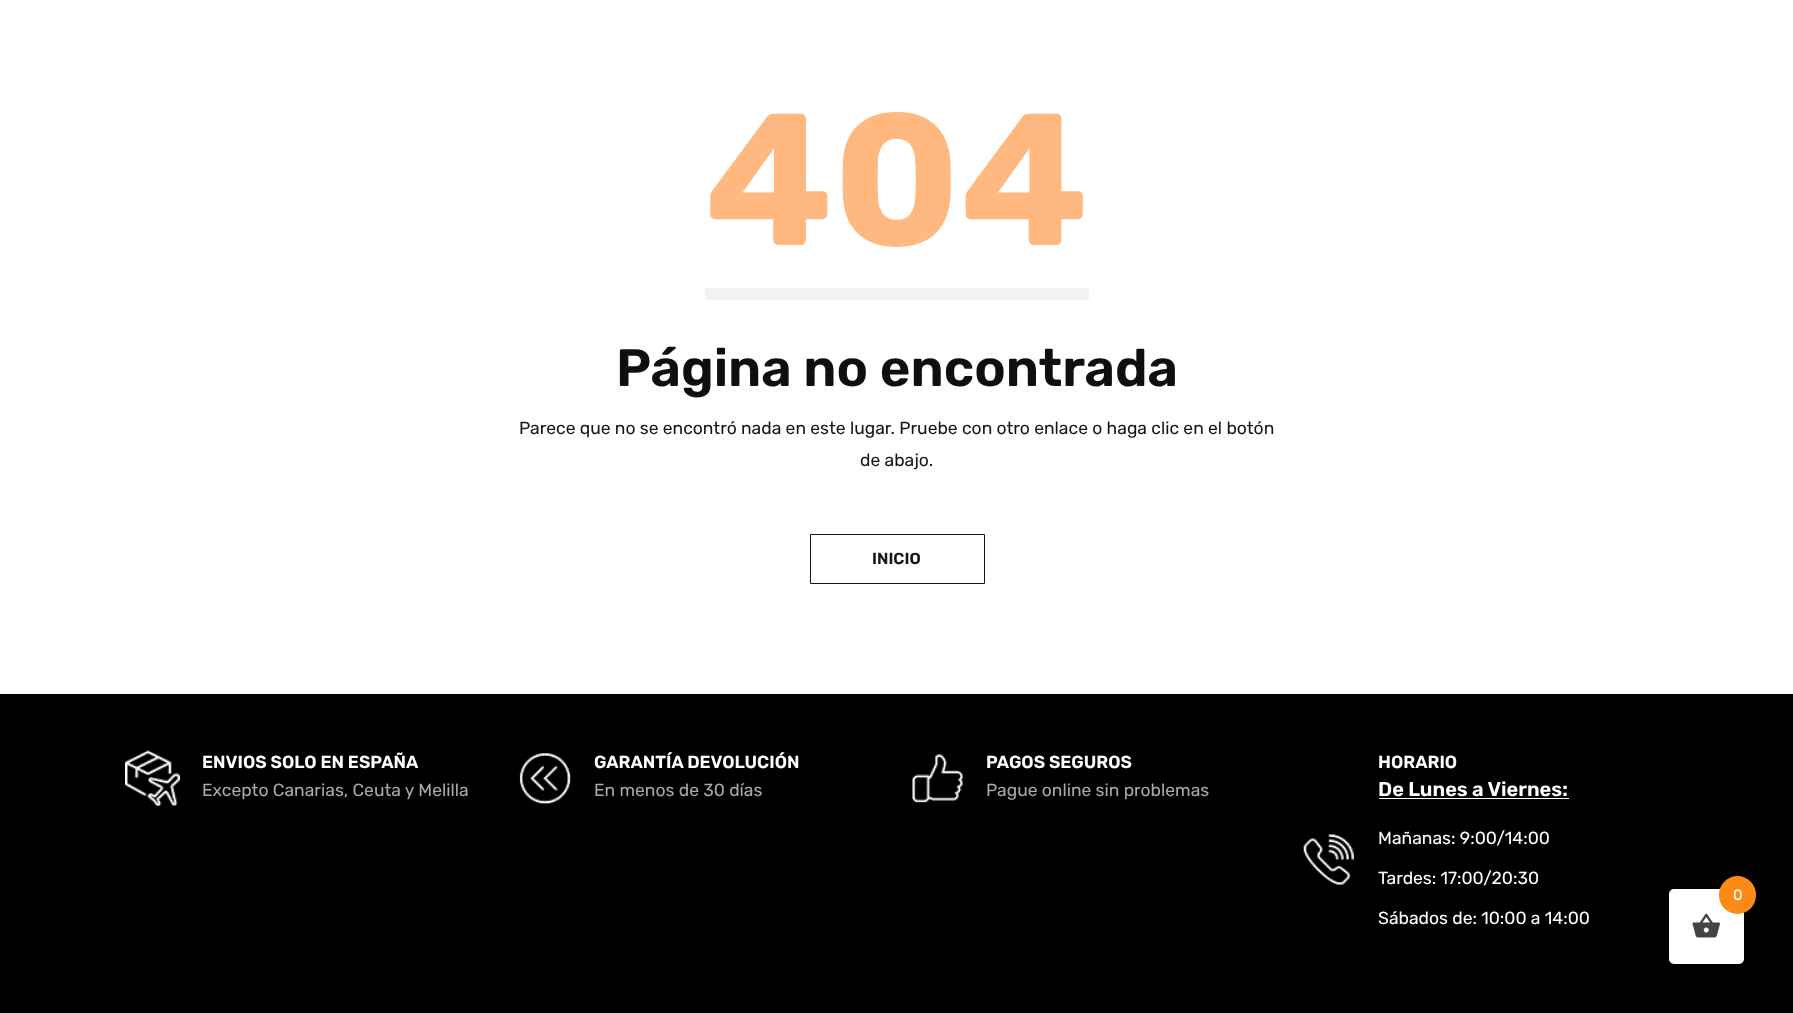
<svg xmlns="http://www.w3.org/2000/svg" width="1793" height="1013">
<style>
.a{font:bold 187.5px Rubik;fill:#feb880}
.b{font:600 52.5px Rubik;fill:#0f0f0f}
.c{font:17.5px Rubik;fill:#161616}
.d{font:600 16px Rubik;fill:#161616}
.e{font:600 17.5px Rubik;fill:#fff}
.f{font:17.5px Rubik;fill:#a7a9ae}
.g{font:600 20px Rubik;fill:#fff}
.h{font:17.5px Rubik;fill:#fff}
.i{font:15px Rubik;fill:#fff}
</style>
<rect width="100%" height="100%" fill="#fff"/>
<path fill="#f2f2f2" d="M705 288h384v12H705z"/>
<path fill="none" stroke="#161616" d="M810.5 534.5h174v49H810.5z"/>
<path fill="#000" d="M0 694h1793v319H0z"/>
<image href="1.png" x="125" y="750" width="55" height="56"/>
<image href="2.png" x="519" y="753" width="52" height="51"/>
<image href="3.png" x="912" y="754" width="51" height="49"/>
<image href="4.png" x="1303" y="834" width="51" height="51"/>
<path fill="#fff" d="M1379 798h190v1H1379z"/>
<rect fill="#fff" x="1669" y="889" width="75" height="75" rx="5"/>
<image href="5.png" x="1692" y="913" width="28" height="25"/>
<rect fill="#fc8a17" x="1719" y="876" width="37" height="38" rx="18.5"/>
<text class="a" x="705" y="245">404</text>
<text class="b" x="616" y="386">Página no encontrada</text>
<text class="c" x="519" y="434">Parece que no se encontró nada en este lugar. Pruebe con otro enlace o haga clic en el botón</text>
<text class="c" x="860" y="466">de abajo.</text>
<text class="d" x="872" y="564">INICIO</text>
<text class="e" x="202" y="768">ENVIOS SOLO EN ESPAÑA</text>
<text class="f" x="202" y="796">Excepto Canarias, Ceuta y Melilla</text>
<text class="e" x="594" y="768">GARANTÍA DEVOLUCIÓN</text>
<text class="f" x="594" y="796">En menos de 30 días</text>
<text class="e" x="986" y="768">PAGOS SEGUROS</text>
<text class="f" x="986" y="796">Pague online sin problemas</text>
<text class="e" x="1378" y="768">HORARIO</text>
<text class="g" x="1378" y="796">De Lunes a Viernes:</text>
<text class="h" x="1378" y="844">Mañanas: 9:00/14:00</text>
<text class="h" x="1378" y="884">Tardes: 17:00/20:30</text>
<text class="h" x="1378" y="924">Sábados de: 10:00 a 14:00</text>
<text class="i" x="1733" y="900">0</text>
</svg>
